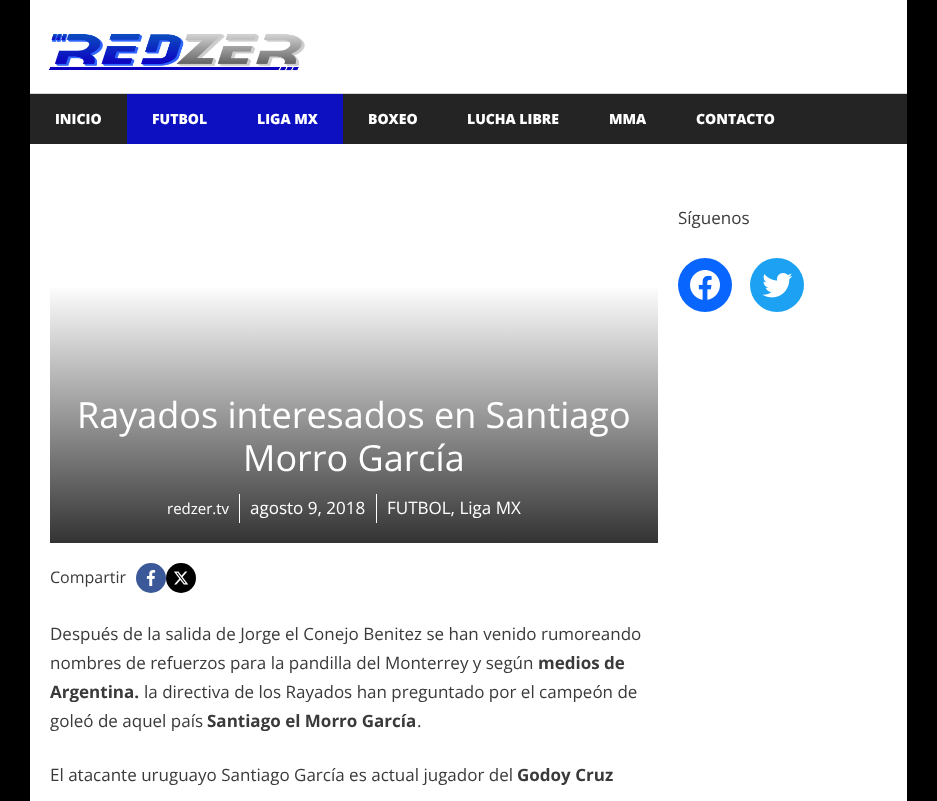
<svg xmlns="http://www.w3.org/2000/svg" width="937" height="801">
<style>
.a{font:800 14px Open Sans;fill:#fff}
.b{font:17px Open Sans;fill:#3a3a3a}
.c{font:36px Open Sans;fill:#fff}
.d{font:15px Open Sans;fill:#fff}
.e{font:17px Open Sans;fill:#fff}
.f{font:16px Open Sans;fill:#3a3a3a}
.g{font:bold 17px Open Sans;fill:#3a3a3a}
</style>
<defs>
<linearGradient id="g1" gradientUnits="userSpaceOnUse" x1="354" y1="543" x2="354" y2="174"><stop offset="0" stop-color="#333"/><stop offset="0.7" stop-color="#fff"/></linearGradient>
</defs>
<rect width="100%" height="100%" fill="#000"/>
<path fill="#fff" d="M30 0h877v93H30z"/>
<image href="1.png" x="48" y="33" width="257" height="38"/>
<path fill="#242424" d="M30 94h877v50H30z"/>
<path fill="#d4d7d8" d="M30 93h877v1H30z"/>
<path fill="#0c10c1" d="M127 94h216v50H127z"/>
<path fill="#fff" d="M30 144h877v657H30z"/>
<circle fill="#0866ff" cx="705" cy="285" r="27"/>
<image href="2.png" x="690" y="270" width="30" height="30"/>
<circle fill="#1da1f2" cx="777" cy="285" r="27"/>
<image href="3.png" x="762" y="273" width="31" height="25"/>
<path fill="url(#g1)" d="M50 288h608v255H50z"/>
<path fill="#fff" d="M239 494h1v29H239z"/>
<path fill="#fff" d="M376 494h1v29H376z"/>
<circle fill="#3b5998" cx="151" cy="578" r="15"/>
<image href="4.png" x="146" y="570" width="10" height="16"/>
<circle fill="#000" cx="181" cy="578" r="15"/>
<image href="5.png" x="174" y="571" width="15" height="14"/>
<text class="a" x="55" y="124">INICIO</text>
<text class="a" x="152" y="124">FUTBOL</text>
<text class="a" x="257" y="124">LIGA MX</text>
<text class="a" x="368" y="124">BOXEO</text>
<text class="a" x="467" y="124">LUCHA LIBRE</text>
<text class="a" x="609" y="124">MMA</text>
<text class="a" x="696" y="124">CONTACTO</text>
<text class="b" x="678" y="224">Síguenos</text>
<text class="c" x="77" y="428">Rayados interesados en Santiago</text>
<text class="c" x="243" y="471">Morro García</text>
<text class="d" x="167" y="514">redzer.tv</text>
<text class="e" x="250" y="514">agosto 9, 2018</text>
<text class="e" x="387" y="514">FUTBOL, Liga MX</text>
<text class="f" x="50" y="583">Compartir</text>
<text class="b" x="50" y="640">Después de la salida de Jorge el Conejo Benitez se han venido rumoreando</text>
<text class="b" x="50" y="669">nombres de refuerzos para la pandilla del Monterrey y según</text>
<text class="g" x="538" y="669">medios de</text>
<text class="g" x="50" y="698">Argentina.</text>
<text class="b" x="144" y="698">la directiva de los Rayados han preguntado por el campeón de</text>
<text class="b" x="50" y="727">goleó de aquel país</text>
<text class="g" x="207" y="727">Santiago el Morro García</text>
<text class="b" x="417" y="727">.</text>
<text class="b" x="50" y="781">El atacante uruguayo Santiago García es actual jugador del</text>
<text class="g" x="517" y="781">Godoy Cruz</text>
</svg>
